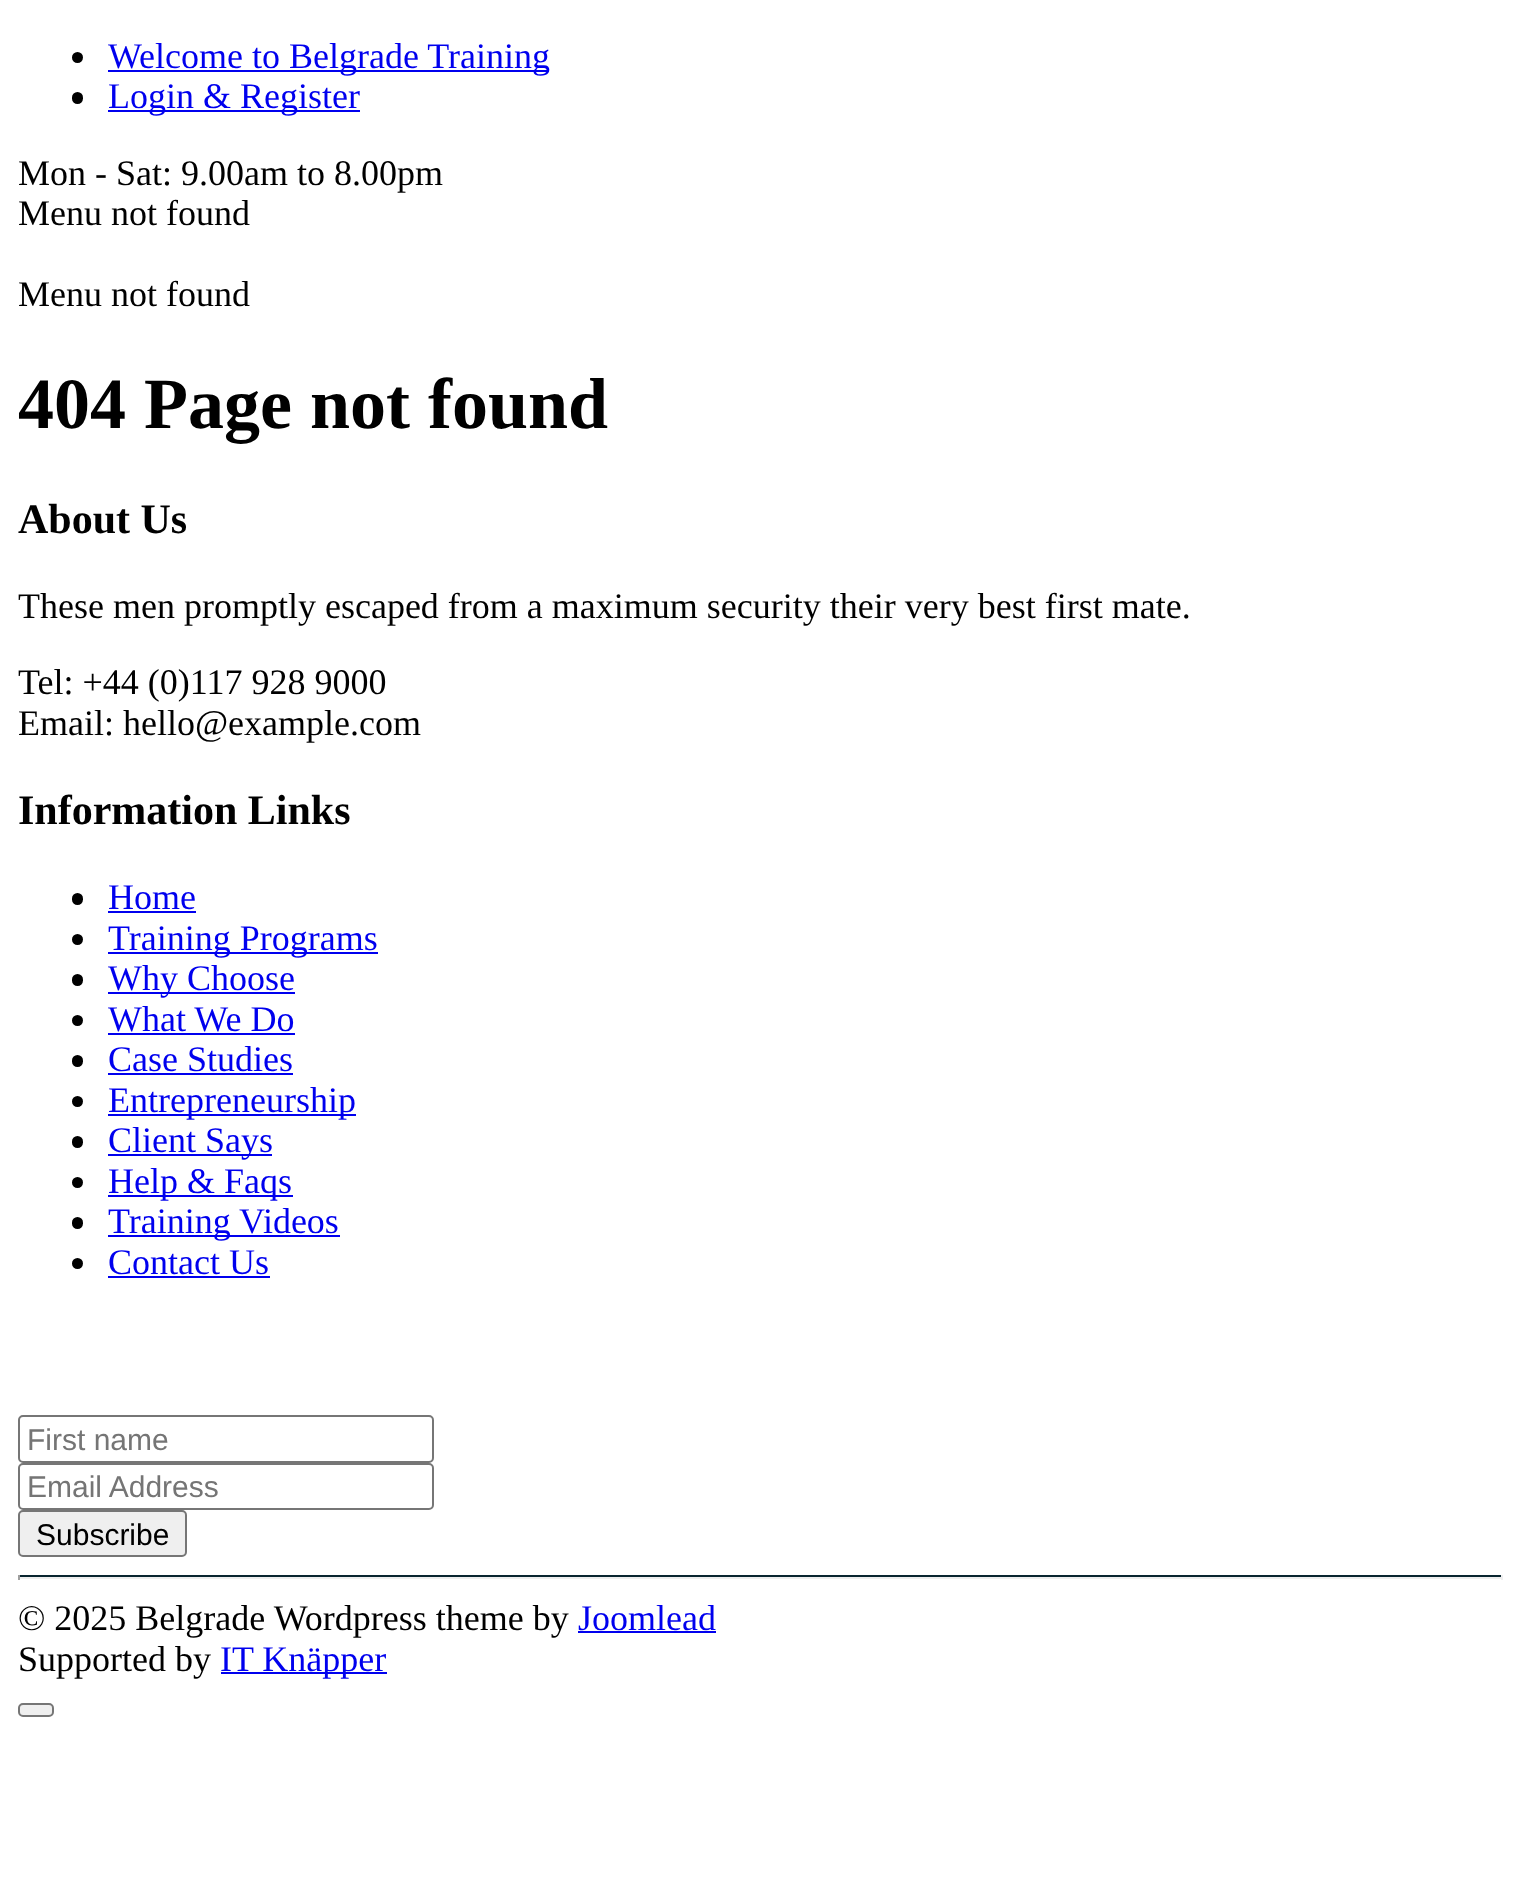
<svg xmlns="http://www.w3.org/2000/svg" width="1521" height="1890">
<style>
.a{font:36px Liberation Serif;fill:#00e}
.b{font:36px Liberation Serif;fill:#000}
.c{font:bold 72px Liberation Serif;fill:#000}
.d{font:bold 42px Liberation Serif;fill:#000}
.e{font:30px Liberation Sans;fill:#757575}
.f{font:30px Liberation Sans;fill:#000}
</style>
<rect width="100%" height="100%" fill="#fff"/>
<circle fill="#000" cx="77.5" cy="57.5" r="5.5"/>
<path fill="#00e" d="M108 70h441v2H108z"/>
<rect fill="#000" x="72" y="92" width="11" height="12" rx="5.5"/>
<path fill="#00e" d="M108 110h252v2H108z"/>
<rect fill="#000" x="72" y="893" width="11" height="12" rx="5.5"/>
<path fill="#00e" d="M108 911h88v2H108z"/>
<circle fill="#000" cx="77.5" cy="939.5" r="5.5"/>
<path fill="#00e" d="M108 952h270v2H108z"/>
<rect fill="#000" x="72" y="974" width="11" height="12" rx="5.5"/>
<path fill="#00e" d="M108 992h187v2H108z"/>
<circle fill="#000" cx="77.5" cy="1020.5" r="5.5"/>
<path fill="#00e" d="M108 1033h187v2H108z"/>
<rect fill="#000" x="72" y="1055" width="11" height="12" rx="5.5"/>
<path fill="#00e" d="M108 1073h185v2H108z"/>
<circle fill="#000" cx="77.5" cy="1101.5" r="5.5"/>
<path fill="#00e" d="M108 1114h248v2H108z"/>
<rect fill="#000" x="72" y="1136" width="11" height="12" rx="5.5"/>
<path fill="#00e" d="M108 1154h164v2H108z"/>
<circle fill="#000" cx="77.5" cy="1182.5" r="5.5"/>
<path fill="#00e" d="M108 1195h185v2H108z"/>
<rect fill="#000" x="72" y="1217" width="11" height="12" rx="5.5"/>
<path fill="#00e" d="M108 1235h232v2H108z"/>
<circle fill="#000" cx="77.5" cy="1263.5" r="5.5"/>
<path fill="#00e" d="M108 1276h162v2H108z"/>
<rect fill="none" stroke="#767676" stroke-width="2" x="19" y="1416" width="414" height="46" rx="4"/>
<rect fill="none" stroke="#767676" stroke-width="2" x="19" y="1464" width="414" height="45" rx="4"/>
<rect fill="#efefef" stroke="#767676" stroke-width="2" x="19" y="1511" width="167" height="45" rx="4"/>
<path fill="#09252f" d="M18 1575h1485v2H18z"/>
<path fill="#eee" d="M1501 1575h2v5H1501z"/>
<path fill="#eee" d="M18 1577h1485v2H18z"/>
<path fill="#9f9f9f" d="M18 1575h2v5H18z"/>
<path fill="#00e" d="M578 1631h138v2H578z"/>
<path fill="#00e" d="M221 1672h166v2H221z"/>
<rect fill="#efefef" stroke="#767676" stroke-width="2" x="19" y="1704" width="34" height="12" rx="4"/>
<text class="a" x="108" y="68">Welcome to Belgrade Training</text>
<text class="a" x="108" y="108">Login &amp; Register</text>
<text class="b" x="18" y="185">Mon - Sat: 9.00am to 8.00pm</text>
<text class="b" x="18" y="225">Menu not found</text>
<text class="b" x="18" y="306">Menu not found</text>
<text class="c" x="18" y="428">404 Page not found</text>
<text class="d" x="18" y="533">About Us</text>
<text class="b" x="18" y="618">These men promptly escaped from a maximum security their very best first mate.</text>
<text class="b" x="18" y="694">Tel: +44 (0)117 928 9000</text>
<text class="b" x="18" y="735">Email: hello@example.com</text>
<text class="d" x="18" y="824">Information Links</text>
<text class="a" x="108" y="909">Home</text>
<text class="a" x="108" y="950">Training Programs</text>
<text class="a" x="108" y="990">Why Choose</text>
<text class="a" x="108" y="1031">What We Do</text>
<text class="a" x="108" y="1071">Case Studies</text>
<text class="a" x="108" y="1112">Entrepreneurship</text>
<text class="a" x="108" y="1152">Client Says</text>
<text class="a" x="108" y="1193">Help &amp; Faqs</text>
<text class="a" x="108" y="1233">Training Videos</text>
<text class="a" x="108" y="1274">Contact Us</text>
<text class="e" x="27" y="1450">First name</text>
<text class="e" x="27" y="1497">Email Address</text>
<text class="f" x="36" y="1545">Subscribe</text>
<text class="b" x="18" y="1630">© 2025 Belgrade Wordpress theme by</text>
<text class="a" x="578" y="1630">Joomlead</text>
<text class="b" x="18" y="1671">Supported by</text>
<text class="a" x="220" y="1671">IT Knäpper</text>
</svg>
